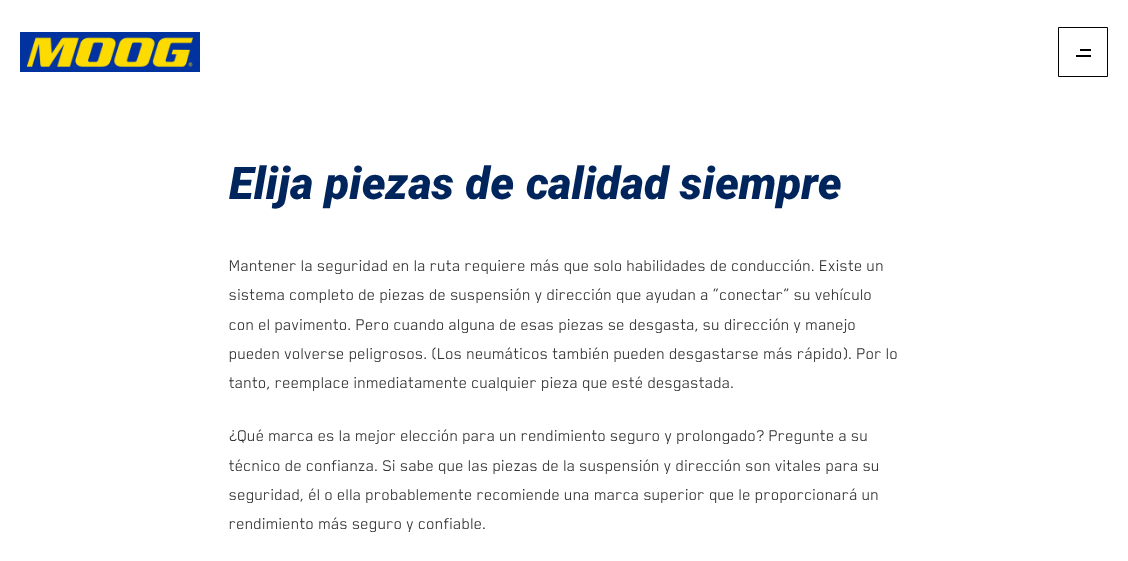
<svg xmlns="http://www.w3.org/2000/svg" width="1128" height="561">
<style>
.a{font:italic 900 45px Roboto;fill:#00255d}
.b{font:18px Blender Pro;fill:#333}
</style>
<rect width="100%" height="100%" fill="#fff"/>
<image href="1.png" x="20" y="32" width="180" height="40"/>
<path fill="none" stroke="#000" d="M1058.5 27.5h49v49H1058.5z"/>
<path fill="#000" d="M1080 49h11v2H1080z"/>
<path fill="#000" d="M1076 55h15v2H1076z"/>
<text class="a" x="229" y="199">Elija piezas de calidad siempre</text>
<text class="b" x="229" y="271">Mantener la seguridad en la ruta requiere más que solo habilidades de conducción. Existe un</text>
<text class="b" x="229" y="300">sistema completo de piezas de suspensión y dirección que ayudan a “conectar” su vehículo</text>
<text class="b" x="229" y="330">con el pavimento. Pero cuando alguna de esas piezas se desgasta, su dirección y manejo</text>
<text class="b" x="229" y="359">pueden volverse peligrosos. (Los neumáticos también pueden desgastarse más rápido). Por lo</text>
<text class="b" x="229" y="388">tanto, reemplace inmediatamente cualquier pieza que esté desgastada.</text>
<text class="b" x="229" y="441">¿Qué marca es la mejor elección para un rendimiento seguro y prolongado? Pregunte a su</text>
<text class="b" x="229" y="471">técnico de confianza. Si sabe que las piezas de la suspensión y dirección son vitales para su</text>
<text class="b" x="229" y="500">seguridad, él o ella probablemente recomiende una marca superior que le proporcionará un</text>
<text class="b" x="229" y="529">rendimiento más seguro y confiable.</text>
</svg>
